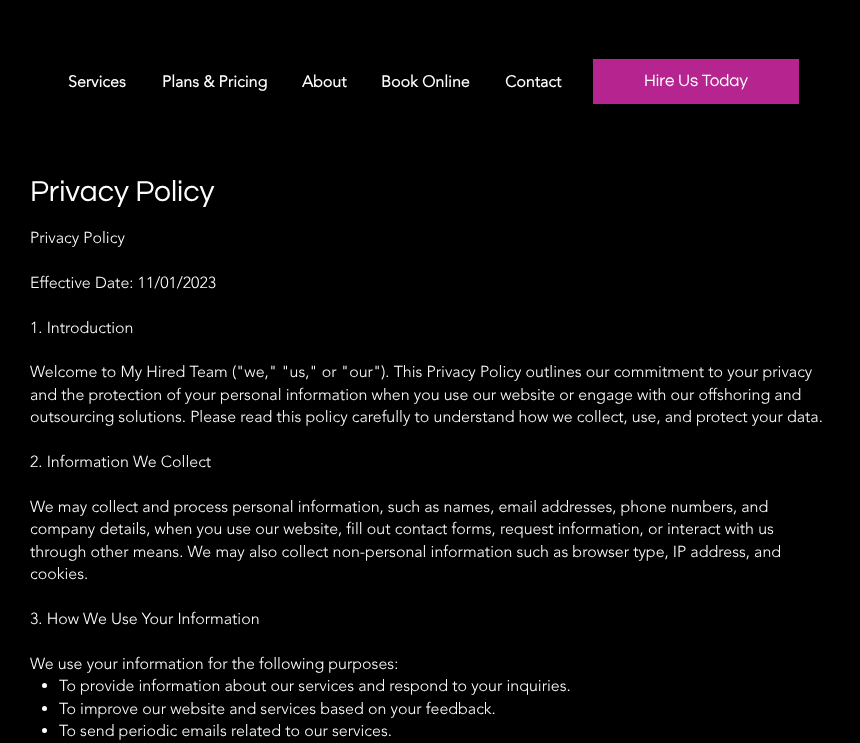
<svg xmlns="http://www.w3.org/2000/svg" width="860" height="743">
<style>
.a{font:bold 16px 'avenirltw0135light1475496';fill:#fff}
.b{font:17px Questrial;fill:#fff}
.c{font:30px Questrial;fill:#fff}
.d{font:300 16px 'avenirltw0135light1475496';fill:#fff}
</style>
<rect width="100%" height="100%" fill="#000"/>
<path fill="#b6258f" d="M593 59h206v45H593z"/>
<circle fill="#fff" cx="44.5" cy="685.5" r="2.5"/>
<circle fill="#fff" cx="44.5" cy="708.5" r="2.5"/>
<circle fill="#fff" cx="44.5" cy="730.5" r="2.5"/>
<text class="a" x="68" y="87">Services</text>
<text class="a" x="162" y="87">Plans &amp; Pricing</text>
<text class="a" x="302" y="87">About</text>
<text class="a" x="381" y="87">Book Online</text>
<text class="a" x="505" y="87">Contact</text>
<text class="b" x="644" y="86">Hire Us Today</text>
<text class="c" x="30" y="201">Privacy Policy</text>
<text class="d" x="30" y="243">Privacy Policy</text>
<text class="d" x="30" y="288">Effective Date: 11/01/2023</text>
<text class="d" x="30" y="333">1. Introduction</text>
<text class="d" x="30" y="377">Welcome to My Hired Team ("we," "us," or "our"). This Privacy Policy outlines our commitment to your privacy</text>
<text class="d" x="30" y="400">and the protection of your personal information when you use our website or engage with our offshoring and</text>
<text class="d" x="30" y="422">outsourcing solutions. Please read this policy carefully to understand how we collect, use, and protect your data.</text>
<text class="d" x="30" y="467">2. Information We Collect</text>
<text class="d" x="30" y="512">We may collect and process personal information, such as names, email addresses, phone numbers, and</text>
<text class="d" x="30" y="534">company details, when you use our website, fill out contact forms, request information, or interact with us</text>
<text class="d" x="30" y="557">through other means. We may also collect non-personal information such as browser type, IP address, and</text>
<text class="d" x="30" y="579">cookies.</text>
<text class="d" x="30" y="624">3. How We Use Your Information</text>
<text class="d" x="30" y="669">We use your information for the following purposes:</text>
<text class="d" x="59" y="691">To provide information about our services and respond to your inquiries.</text>
<text class="d" x="59" y="714">To improve our website and services based on your feedback.</text>
<text class="d" x="59" y="736">To send periodic emails related to our services.</text>
</svg>
